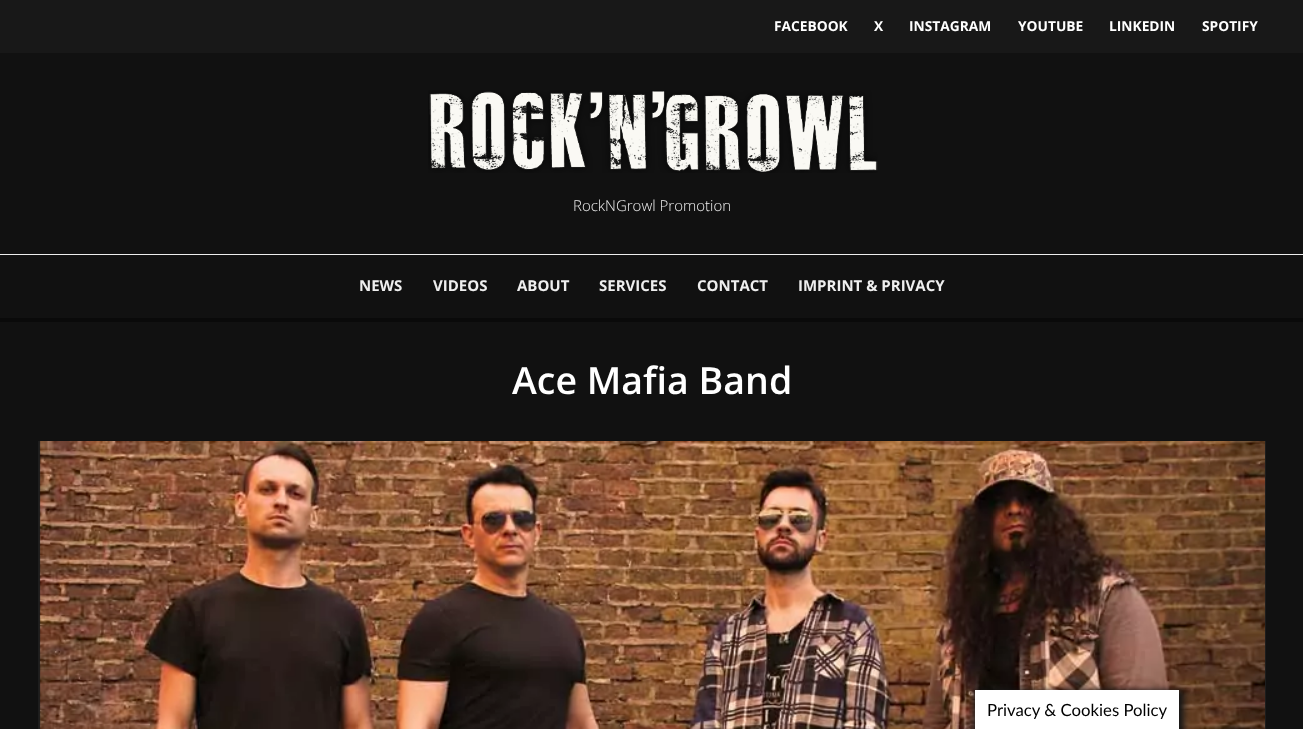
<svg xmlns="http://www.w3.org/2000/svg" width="1303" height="729">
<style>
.a{font:bold 13.75px Open Sans;fill:#fff}
.b{font:300 15px Open Sans;fill:#efefef}
.c{font:bold 15px Open Sans;fill:#efefef}
.d{font:600 37.5px Open Sans;fill:#fff}
.e{font:16.75px Lato;fill:#000}
</style>
<rect width="100%" height="100%" fill="#111"/>
<path fill="#181818" d="M0 0h1303v53H0z"/>
<image href="1.png" x="428" y="90" width="450" height="83"/>
<path fill="#eee" d="M0 254h1303v1H0z"/>
<path fill="#0a0a0a" d="M0 318h1303v4H0z"/>
<path fill="#1d1d1d" d="M38 441h1228v288H38z"/>
<image href="2.png" x="39" y="441" width="1226" height="288"/>
<path fill="#161616" filter="blur(3px)" d="M975 690h209v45H975z"/>
<path fill="#fff" d="M975 690h204v39H975z"/>
<text class="a" x="774" y="31">FACEBOOK</text>
<text class="a" x="874" y="31">X</text>
<text class="a" x="909" y="31">INSTAGRAM</text>
<text class="a" x="1018" y="31">YOUTUBE</text>
<text class="a" x="1109" y="31">LINKEDIN</text>
<text class="a" x="1202" y="31">SPOTIFY</text>
<text class="b" x="573" y="211">RockNGrowl Promotion</text>
<text class="c" x="359" y="291">NEWS</text>
<text class="c" x="433" y="291">VIDEOS</text>
<text class="c" x="517" y="291">ABOUT</text>
<text class="c" x="599" y="291">SERVICES</text>
<text class="c" x="697" y="291">CONTACT</text>
<text class="c" x="798" y="291">IMPRINT &amp; PRIVACY</text>
<text class="d" x="512" y="394">Ace Mafia Band</text>
<text class="e" x="987" y="716">Privacy &amp; Cookies Policy</text>
</svg>
